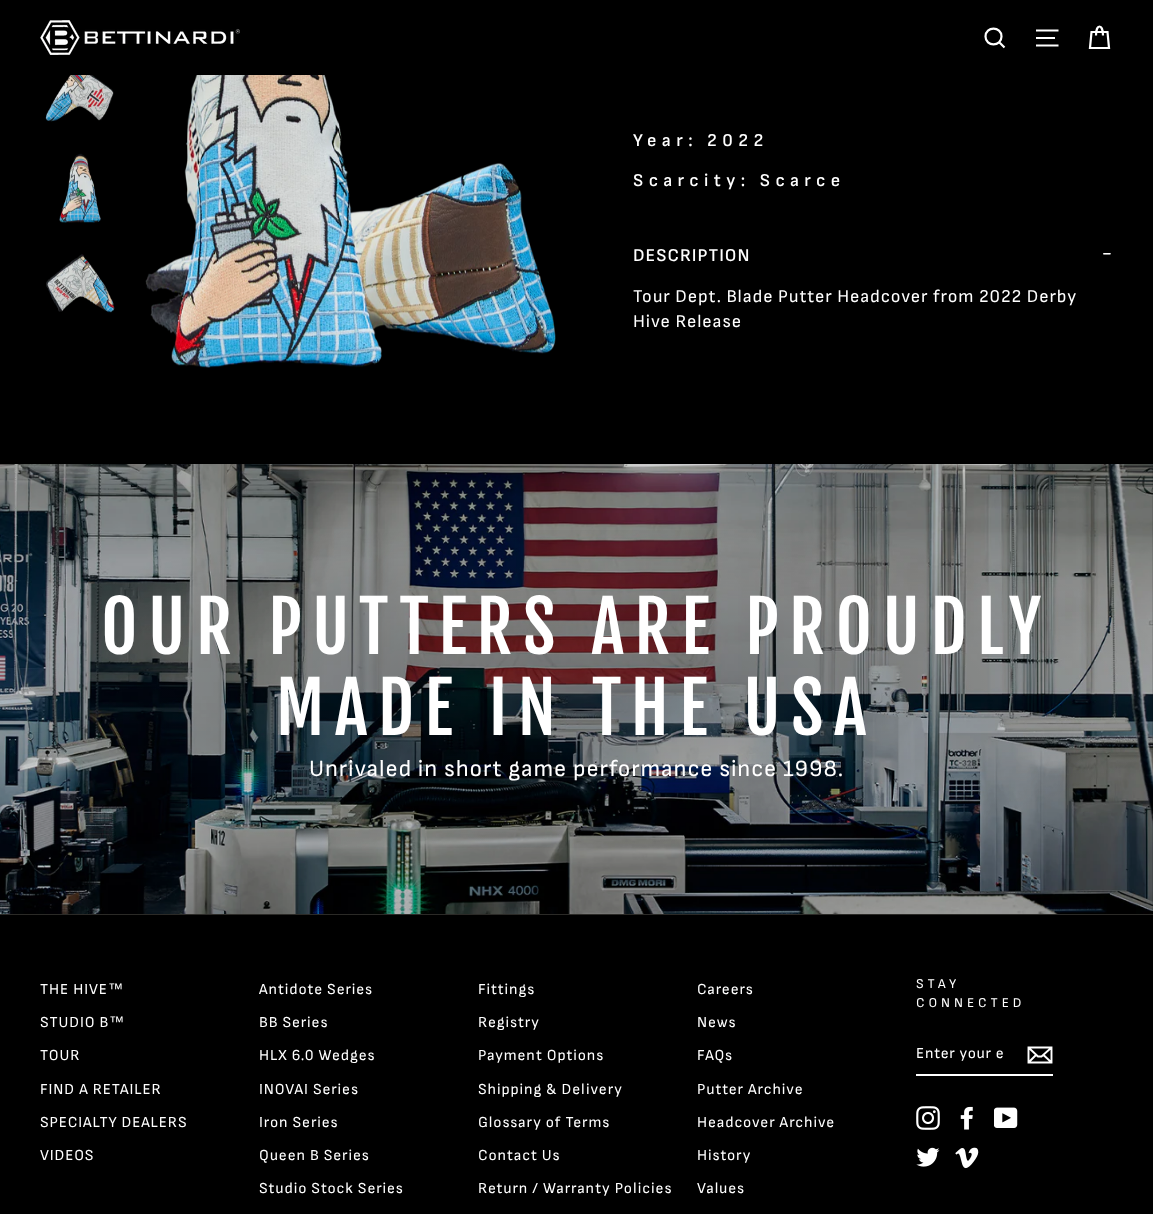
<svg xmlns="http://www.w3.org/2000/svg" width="1153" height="1214">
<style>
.a{font:600 18px Sofia Sans;letter-spacing:5.4px;fill:#fff}
.b{font:600 18px Sofia Sans;letter-spacing:1px;fill:#fff}
.c{font:600 20px Sofia Sans;letter-spacing:1px;fill:#fff}
.d{font:18px Sofia Sans;letter-spacing:0.9px;fill:#fff}
.e{font:70px Fjalla One;letter-spacing:10.5px;fill:#fff}
.f{font:23.4px Sofia Sans;letter-spacing:0.9px;fill:#fff}
.g{font:15.25px Sofia Sans;letter-spacing:0.9px;fill:#fff}
.h{font:15.25px Liberation Sans;letter-spacing:0.9px;fill:#fff}
.i{font:13.5px Sofia Sans;letter-spacing:4px;fill:#fff}
.j{font:15.25px Sofia Sans;letter-spacing:0.75px;fill:#fff}
</style>
<defs>
<radialGradient id="g1" gradientUnits="userSpaceOnUse" cx="0" cy="0" r="1" gradientTransform="matrix(1042 0 0 286 577 689)"><stop offset="0" stop-color="#000" stop-opacity="0.3"/><stop offset="0.6" stop-color="#000" stop-opacity="0"/></radialGradient>
</defs>
<rect width="100%" height="100%" fill="#000"/>
<image href="1.png" x="40" y="20" width="200" height="35"/>
<path fill="none" stroke="#fff" stroke-width="2.2" d="M1001.5 36.5c0 10.5-16 10.5-16 0c0-10.5 16-10.5 16 0zm3 11l-5-5"/>
<path fill="none" stroke="#fff" stroke-width="2.2" d="M1036 30.5h22.5m-22.5 7.5h19m-19 7.5h22.5"/>
<path fill="none" stroke="#fff" stroke-width="2.2" d="M1096 35.5c0-12 7-12 7 0m-11.5-3.5h16l1.5 16h-19z"/>
<image href="2.png" x="45" y="75" width="69" height="47"/>
<image href="3.png" x="59" y="153" width="42" height="70"/>
<image href="4.png" x="46" y="254" width="69" height="59"/>
<image href="5.png" x="145" y="75" width="411" height="293"/>
<image href="6.png" x="0" y="464" width="1153" height="450"/>
<path fill="url(#g1)" d="M0 530h1153v318H0z"/>
<path fill="#2b2a27" d="M0 914h1153v1H0z"/>
<path fill="#fff" d="M916 1074h137v2H916z"/>
<path fill="none" stroke="#fff" stroke-width="1.9" d="M1051.5 1062.5h-23v-15h23zm-23-15l9.5 9h3.5l10-9m-15.5 7.5l-7.5 7.5m23 0l-8-7.5"/>
<image href="7.png" x="916" y="1106" width="24" height="24"/>
<image href="8.png" x="960" y="1106" width="13" height="24"/>
<image href="9.png" x="994" y="1107" width="24" height="21"/>
<image href="10.png" x="916" y="1147" width="24" height="20"/>
<image href="11.png" x="955" y="1147" width="24" height="22"/>
<text class="a" x="633" y="146">Year: 2022</text>
<text class="a" x="633" y="186">Scarcity: Scarce</text>
<text class="b" x="633" y="261">DESCRIPTION</text>
<text class="c" x="1102" y="259">-</text>
<text class="d" x="633" y="302">Tour Dept. Blade Putter Headcover from 2022 Derby</text>
<text class="d" x="633" y="327">Hive Release</text>
<text class="e" x="101" y="654">OUR PUTTERS ARE PROUDLY</text>
<text class="e" x="276" y="735">MADE IN THE USA</text>
<text class="f" x="309" y="776">Unrivaled in short game performance since 1998.</text>
<text class="g" x="40" y="994">THE HIVE</text>
<text class="h" x="108" y="994">™</text>
<text class="g" x="40" y="1027">STUDIO B</text>
<text class="h" x="109" y="1027">™</text>
<text class="g" x="40" y="1060">TOUR</text>
<text class="g" x="40" y="1094">FIND A RETAILER</text>
<text class="g" x="40" y="1127">SPECIALTY DEALERS</text>
<text class="g" x="40" y="1160">VIDEOS</text>
<text class="g" x="259" y="994">Antidote Series</text>
<text class="g" x="259" y="1027">BB Series</text>
<text class="g" x="259" y="1060">HLX 6.0 Wedges</text>
<text class="g" x="259" y="1094">INOVAI Series</text>
<text class="g" x="259" y="1127">Iron Series</text>
<text class="g" x="259" y="1160">Queen B Series</text>
<text class="g" x="259" y="1193">Studio Stock Series</text>
<text class="g" x="478" y="994">Fittings</text>
<text class="g" x="478" y="1027">Registry</text>
<text class="g" x="478" y="1060">Payment Options</text>
<text class="g" x="478" y="1094">Shipping &amp; Delivery</text>
<text class="g" x="478" y="1127">Glossary of Terms</text>
<text class="g" x="478" y="1160">Contact Us</text>
<text class="g" x="478" y="1193">Return / Warranty Policies</text>
<text class="g" x="697" y="994">Careers</text>
<text class="g" x="697" y="1027">News</text>
<text class="g" x="697" y="1060">FAQs</text>
<text class="g" x="697" y="1094">Putter Archive</text>
<text class="g" x="697" y="1127">Headcover Archive</text>
<text class="g" x="697" y="1160">History</text>
<text class="g" x="697" y="1193">Values</text>
<text class="i" x="916" y="988">STAY</text>
<text class="i" x="916" y="1007">CONNECTED</text>
<text class="j" x="916" y="1058">Enter your e</text>
</svg>
